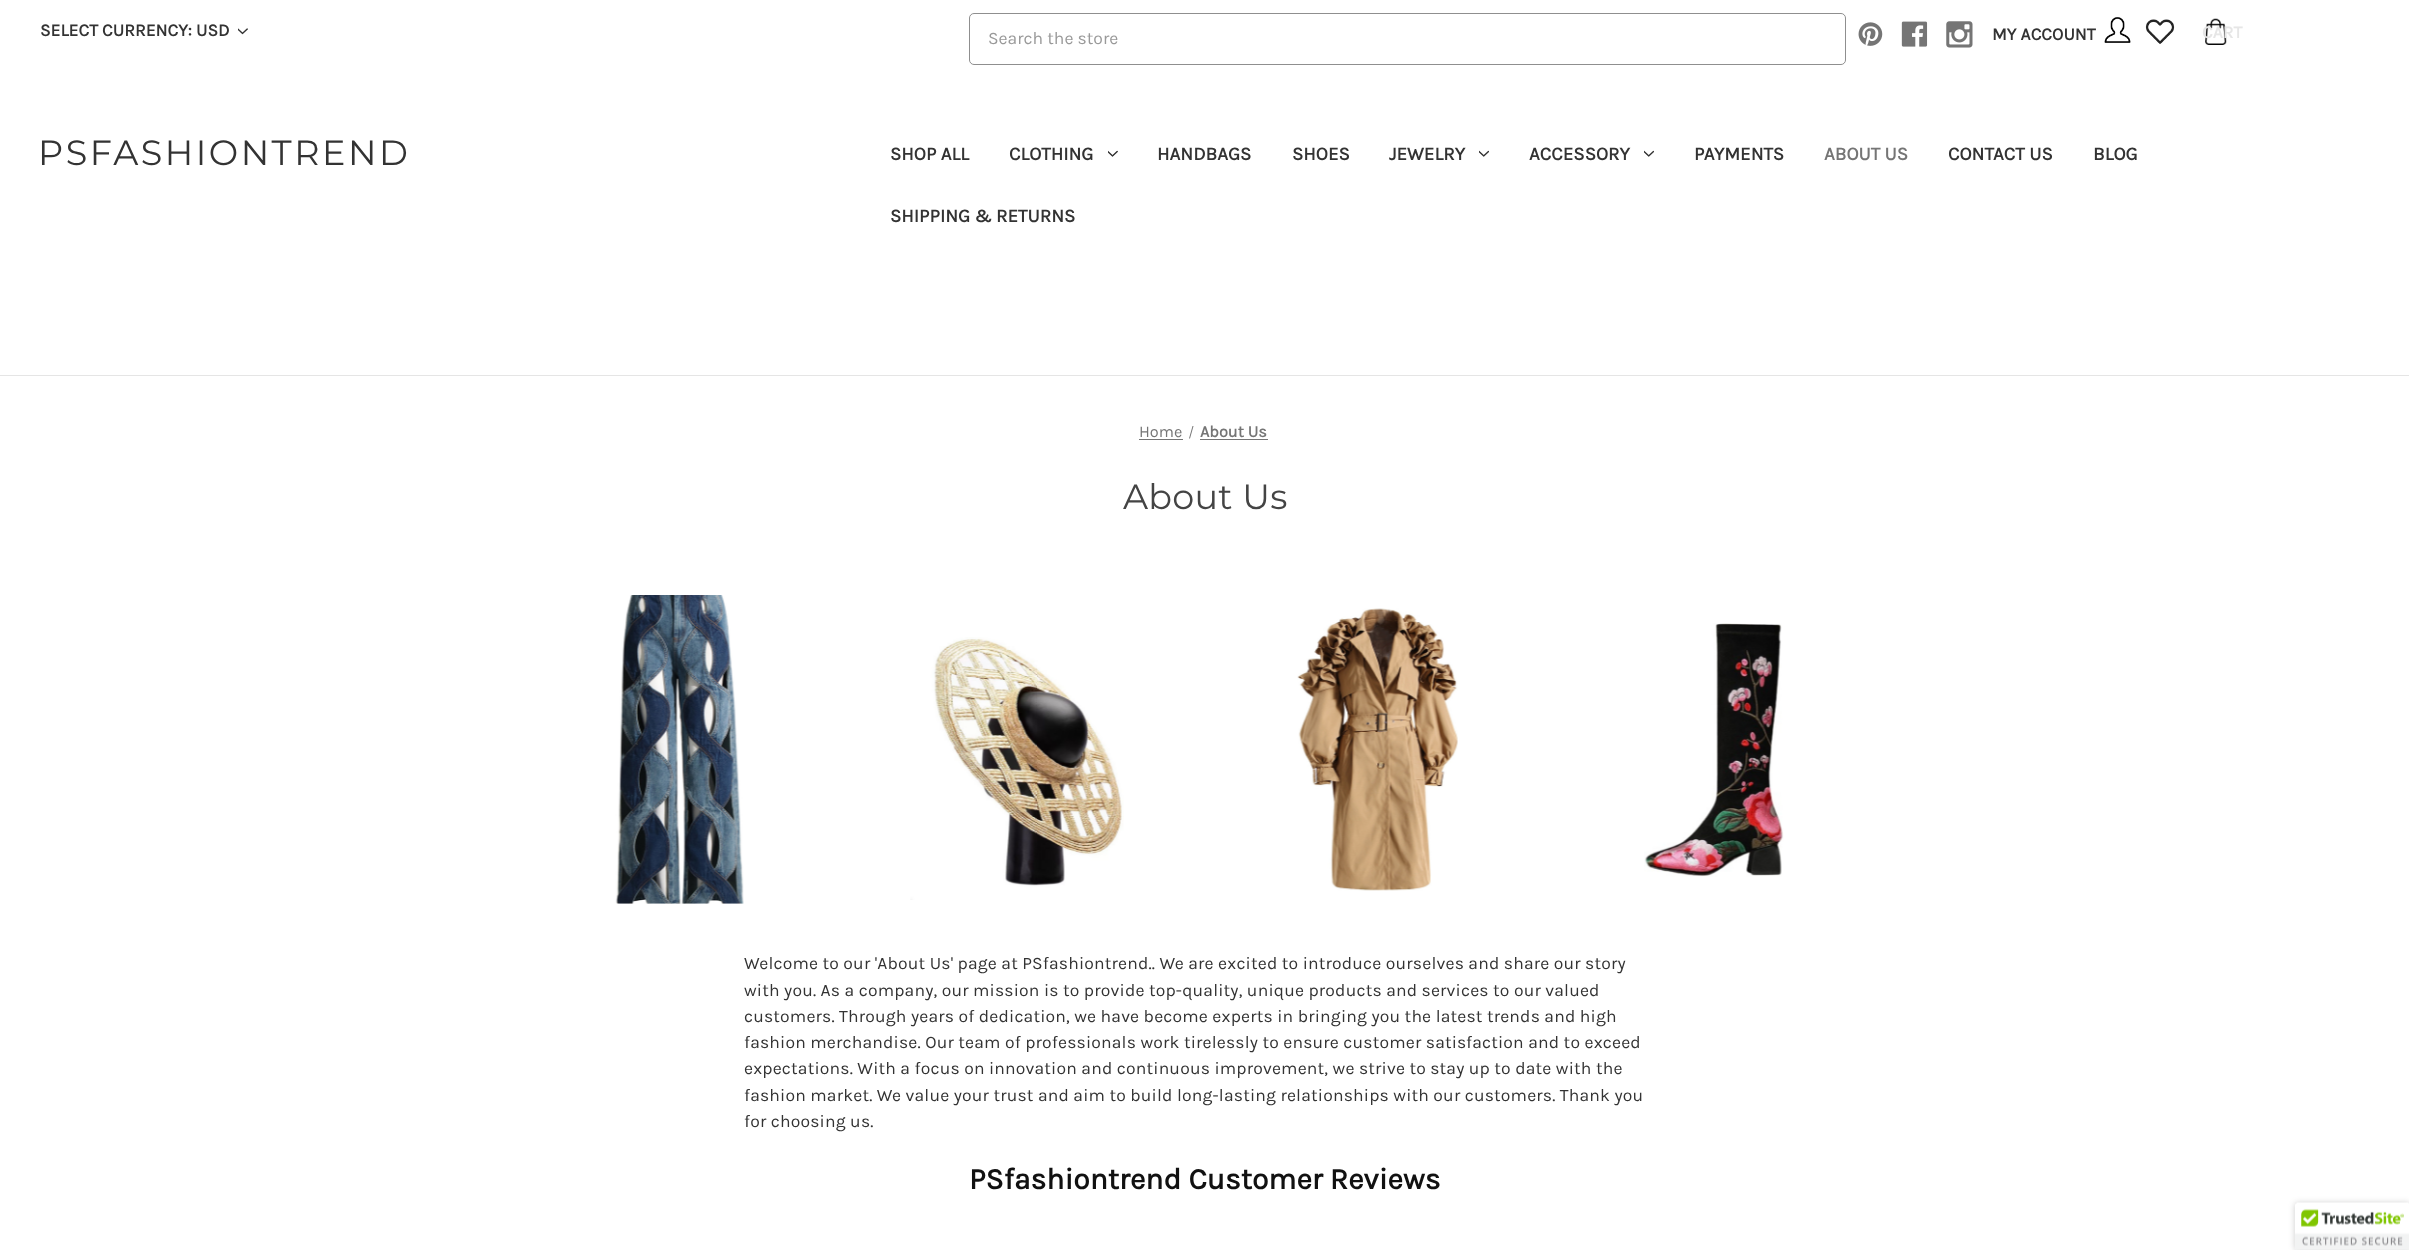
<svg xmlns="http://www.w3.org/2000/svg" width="2409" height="1250">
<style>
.a{font:bold 17.5px Karla;fill:#333}
.b{font:17.5px Karla;fill:#999}
.c{font:bold 17.5px Karla;fill:#e6e6e6}
.d{font:35px Montserrat;letter-spacing:2.5px;fill:#333}
.e{font:bold 18.75px Karla;fill:#333}
.f{font:bold 18.75px Karla;fill:#757575}
.g{font:16.25px Karla;fill:#757575}
.h{font:bold 16.25px Karla;fill:#757575}
.i{font:35px Montserrat;letter-spacing:0.25px;fill:#444}
.j{font:17.5px Karla;letter-spacing:0.18px;fill:#333}
.k{font:bold 30px Karla;fill:#111}
</style>
<rect width="100%" height="100%" fill="#fff"/>
<path fill="#e5e5e5" d="M0 375h2409v1H0z"/>
<image href="1.png" x="238" y="28" width="10" height="7"/>
<rect fill="none" stroke="#8f8f8f" x="969.5" y="13.5" width="876" height="51" rx="4.5"/>
<image href="2.png" x="1858" y="22" width="25" height="24"/>
<image href="3.png" x="1901" y="21" width="27" height="26"/>
<image href="4.png" x="1946" y="21" width="27" height="27"/>
<image href="5.png" x="2104" y="17" width="27" height="26"/>
<image href="6.png" x="2145" y="19" width="30" height="25"/>
<image href="7.png" x="2205" y="18" width="22" height="27"/>
<image href="8.png" x="1108" y="150" width="10" height="7"/>
<image href="9.png" x="1479" y="150" width="10" height="7"/>
<image href="9.png" x="1644" y="150" width="10" height="7"/>
<path fill="#757575" d="M1139 439h44v1H1139z"/>
<path fill="#757575" d="M1192.5 426h1l-3.5 12.5h-1z"/>
<path fill="#757575" d="M1200 439h68v1H1200z"/>
<image href="10.png" x="615" y="595" width="129" height="309"/>
<image href="11.png" x="910" y="637" width="214" height="263"/>
<image href="12.png" x="1297" y="608" width="161" height="283"/>
<image href="13.png" x="1644" y="623" width="140" height="254"/>
<rect fill="#00000033" filter="blur(3px)" x="2295" y="1203" width="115" height="47" rx="2.5"/>
<image href="14.png" x="2295" y="1202" width="114" height="48"/>
<text class="a" x="40" y="36">SELECT CURRENCY: USD</text>
<text class="b" x="988" y="44">Search the store</text>
<text class="a" x="1992" y="40">MY ACCOUNT</text>
<text class="c" x="2202" y="38">CART</text>
<text class="d" x="38" y="165">PSFASHIONTREND</text>
<text class="e" x="890" y="160">SHOP ALL</text>
<text class="e" x="1009" y="160">CLOTHING</text>
<text class="e" x="1157" y="160">HANDBAGS</text>
<text class="e" x="1292" y="160">SHOES</text>
<text class="e" x="1389" y="160">JEWELRY</text>
<text class="e" x="1529" y="160">ACCESSORY</text>
<text class="e" x="1694" y="160">PAYMENTS</text>
<text class="f" x="1824" y="160">ABOUT US</text>
<text class="e" x="1948" y="160">CONTACT US</text>
<text class="e" x="2093" y="160">BLOG</text>
<text class="e" x="890" y="222">SHIPPING &amp; RETURNS</text>
<text class="g" x="1139" y="437">Home</text>
<text class="h" x="1200" y="437">About Us</text>
<text class="i" x="1123" y="509">About Us</text>
<text class="j" x="744" y="969">Welcome to our 'About Us' page at PSfashiontrend.. We are excited to introduce ourselves and share our story</text>
<text class="j" x="744" y="996">with you. As a company, our mission is to provide top-quality, unique products and services to our valued</text>
<text class="j" x="744" y="1022">customers. Through years of dedication, we have become experts in bringing you the latest trends and high</text>
<text class="j" x="744" y="1048">fashion merchandise. Our team of professionals work tirelessly to ensure customer satisfaction and to exceed</text>
<text class="j" x="744" y="1074">expectations. With a focus on innovation and continuous improvement, we strive to stay up to date with the</text>
<text class="j" x="744" y="1101">fashion market. We value your trust and aim to build long-lasting relationships with our customers. Thank you</text>
<text class="j" x="744" y="1127">for choosing us.</text>
<text class="k" x="969" y="1189">PSfashiontrend Customer Reviews</text>
</svg>
